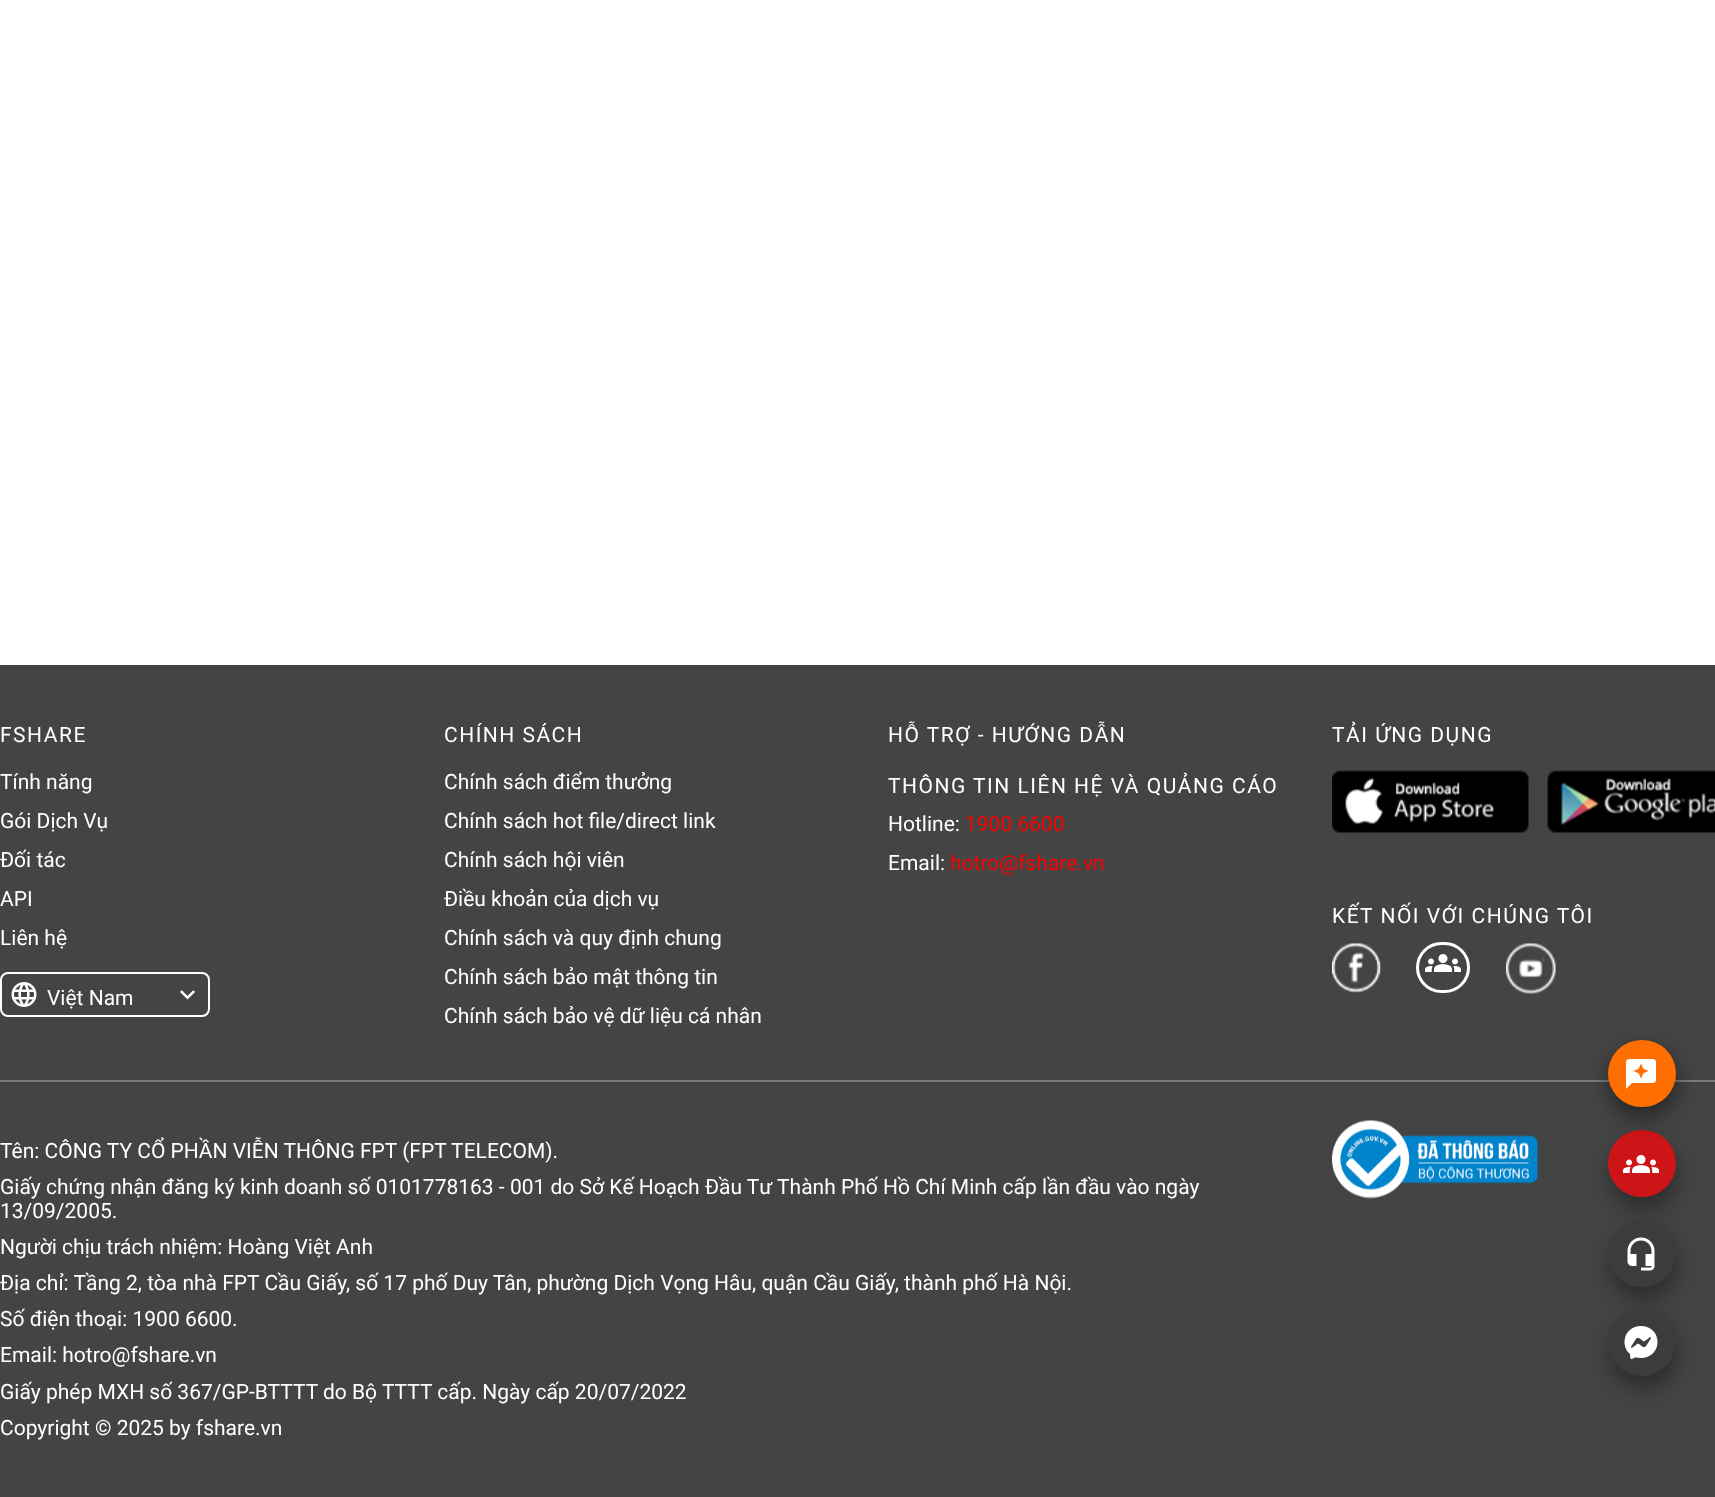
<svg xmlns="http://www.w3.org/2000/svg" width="1715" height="1497">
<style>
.a{font:21px Roboto;letter-spacing:1.5px;fill:#fff}
.b{font:21px Roboto;fill:#fff}
.c{font:21px Roboto;fill:#f00}
</style>
<rect width="100%" height="100%" fill="#fff"/>
<path fill="#444" d="M0 665h1715v832H0z"/>
<rect fill="none" stroke="#fff" stroke-width="2" x="1" y="973" width="208" height="43" rx="7"/>
<image href="1.png" x="11" y="982" width="26" height="25"/>
<image href="2.png" x="180" y="990" width="15" height="10"/>
<image href="3.png" x="1332" y="770" width="197" height="63"/>
<image href="4.png" x="1547" y="770" width="168" height="63"/>
<image href="5.png" x="1332" y="943" width="49" height="50"/>
<rect fill="none" stroke="#fff" stroke-width="3" x="1417.5" y="943.5" width="51" height="48" rx="24"/>
<image href="6.png" x="1425" y="954" width="36" height="18"/>
<image href="7.png" x="1506" y="943" width="50" height="51"/>
<path fill="#7b7b7b" d="M0 1080h1715v2H0z"/>
<image href="8.png" x="1332" y="1120" width="206" height="79"/>
<rect fill="#0000005c" filter="blur(10.5px)" x="1610" y="1142" width="67" height="67" rx="33.5"/>
<rect fill="#cd1417" x="1608" y="1130" width="68" height="67" rx="33.5"/>
<image href="9.png" x="1623" y="1155" width="36" height="18"/>
<rect fill="#0000001f" filter="blur(7.5px)" x="1608" y="1043" width="68" height="67" rx="33.5"/>
<rect fill="#0000005c" filter="blur(10.5px)" x="1610" y="1052" width="67" height="67" rx="33.5"/>
<rect fill="#ff6e01" x="1608" y="1040" width="68" height="67" rx="33.5"/>
<image href="10.png" x="1626" y="1059" width="30" height="30"/>
<rect fill="#0000005c" filter="blur(10.5px)" x="1610" y="1232" width="67" height="67" rx="33.5"/>
<rect fill="#3c3c3c" x="1608" y="1220" width="68" height="67" rx="33.5"/>
<image href="11.png" x="1627" y="1237" width="28" height="34"/>
<rect fill="#0000005c" filter="blur(10.5px)" x="1610" y="1320" width="67" height="68" rx="33.5"/>
<circle fill="#3c3c3c" cx="1642" cy="1342" r="34"/>
<image href="12.png" x="1624" y="1326" width="34" height="33"/>
<text class="a" x="0" y="742">FSHARE</text>
<text class="b" x="0" y="789">Tính năng</text>
<text class="b" x="0" y="828">Gói Dịch Vụ</text>
<text class="b" x="0" y="867">Đối tác</text>
<text class="b" x="0" y="906">API</text>
<text class="b" x="0" y="945">Liên hệ</text>
<text class="b" x="47" y="1005">Việt Nam</text>
<text class="a" x="444" y="742">CHÍNH SÁCH</text>
<text class="b" x="444" y="789">Chính sách điểm thưởng</text>
<text class="b" x="444" y="828">Chính sách hot file/direct link</text>
<text class="b" x="444" y="867">Chính sách hội viên</text>
<text class="b" x="444" y="906">Điều khoản của dịch vụ</text>
<text class="b" x="444" y="945">Chính sách và quy định chung</text>
<text class="b" x="444" y="984">Chính sách bảo mật thông tin</text>
<text class="b" x="444" y="1023">Chính sách bảo vệ dữ liệu cá nhân</text>
<text class="a" x="888" y="742">HỖ TRỢ - HƯỚNG DẪN</text>
<text class="a" x="888" y="793">THÔNG TIN LIÊN HỆ VÀ QUẢNG CÁO</text>
<text class="b" x="888" y="831">Hotline:</text>
<text class="c" x="965" y="831">1900 6600</text>
<text class="b" x="888" y="870">Email:</text>
<text class="c" x="950" y="870">hotro@fshare.vn</text>
<text class="a" x="1332" y="742">TẢI ỨNG DỤNG</text>
<text class="a" x="1332" y="923">KẾT NỐI VỚI CHÚNG TÔI</text>
<text class="b" x="0" y="1158">Tên: CÔNG TY CỔ PHẦN VIỄN THÔNG FPT (FPT TELECOM).</text>
<text class="b" x="0" y="1194">Giấy chứng nhận đăng ký kinh doanh số 0101778163 - 001 do Sở Kế Hoạch Đầu Tư Thành Phố Hồ Chí Minh cấp lần đầu vào ngày</text>
<text class="b" x="0" y="1218">13/09/2005.</text>
<text class="b" x="0" y="1254">Người chịu trách nhiệm: Hoàng Việt Anh</text>
<text class="b" x="0" y="1290">Địa chỉ: Tầng 2, tòa nhà FPT Cầu Giấy, số 17 phố Duy Tân, phường Dịch Vọng Hâu, quận Cầu Giấy, thành phố Hà Nội.</text>
<text class="b" x="0" y="1326">Số điện thoại: 1900 6600.</text>
<text class="b" x="0" y="1362">Email: hotro@fshare.vn</text>
<text class="b" x="0" y="1399">Giấy phép MXH số 367/GP-BTTTT do Bộ TTTT cấp. Ngày cấp 20/07/2022</text>
<text class="b" x="0" y="1435">Copyright © 2025 by fshare.vn</text>
</svg>
